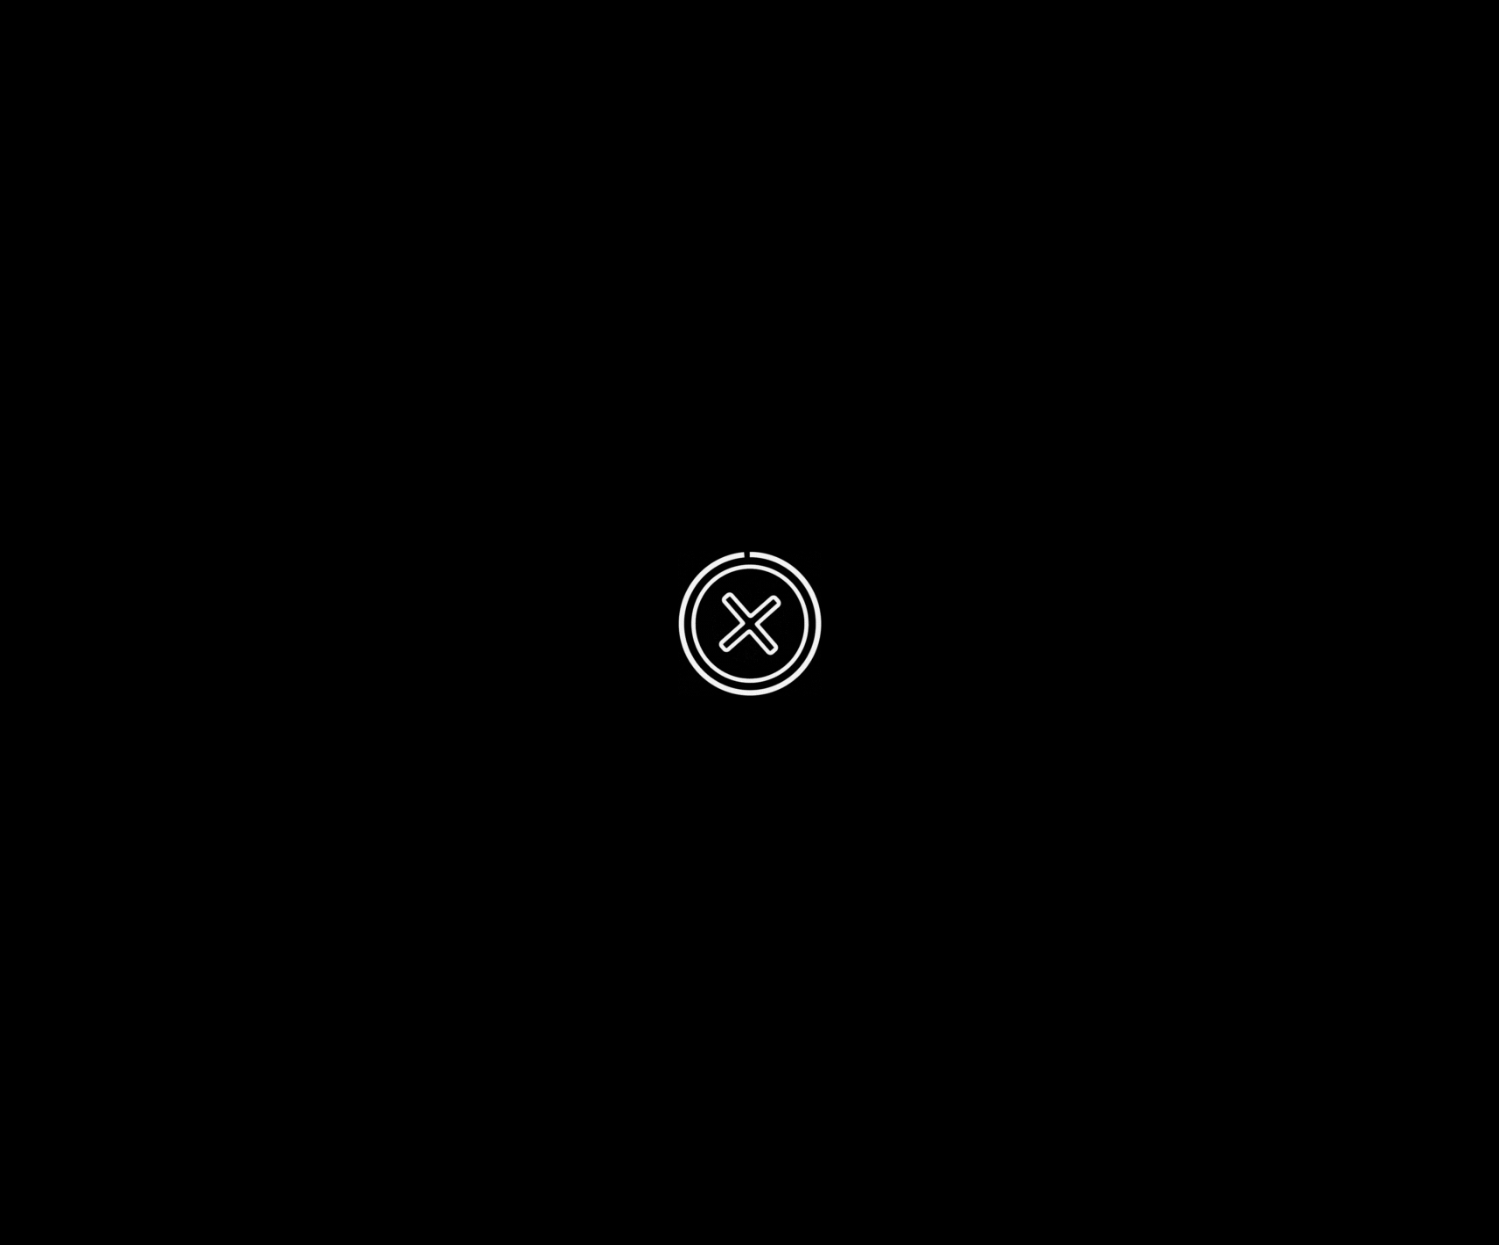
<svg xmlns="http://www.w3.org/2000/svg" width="1499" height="1245">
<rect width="100%" height="100%" fill="#000"/>
<image href="1.png" x="678" y="551" width="144" height="145"/>
</svg>
